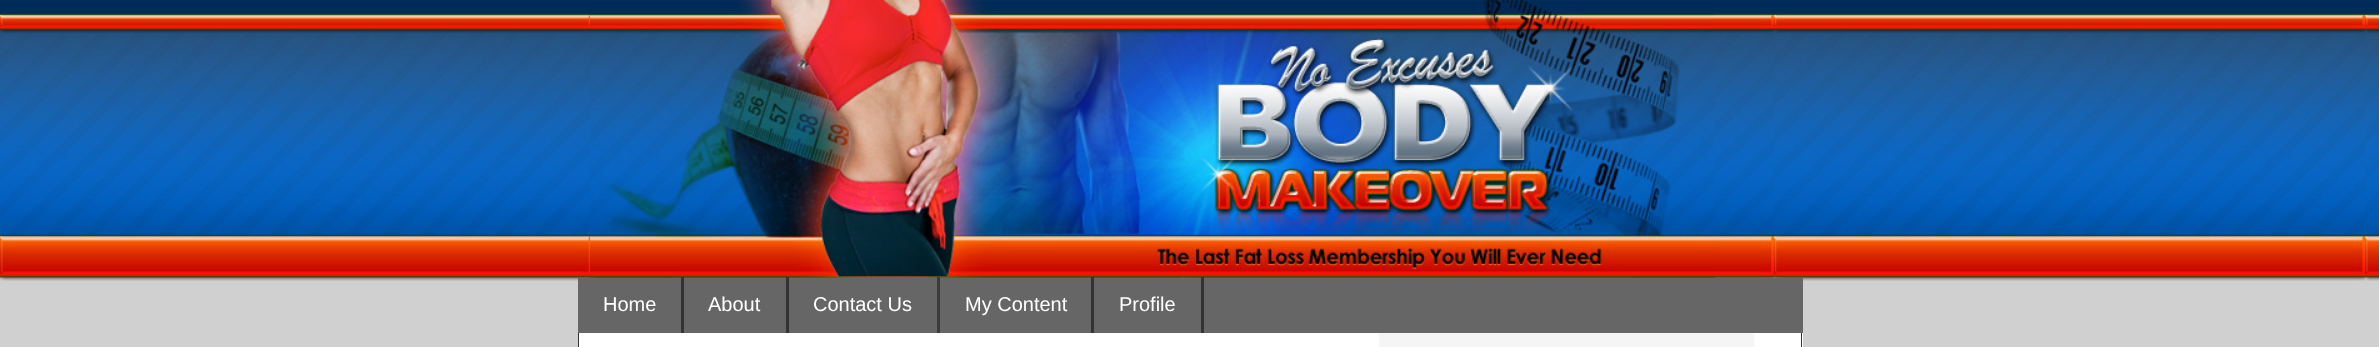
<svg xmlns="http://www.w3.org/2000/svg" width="2379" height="347">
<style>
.a{font:20px Liberation Sans;fill:#fff}
</style>
<rect width="100%" height="100%" fill="#d0d0d0"/>
<image href="1.png" x="0" y="0" width="2379" height="281"/>
<image href="2.png" x="590" y="0" width="1125" height="278"/>
<path fill="#666" d="M578 278h1225v55H578z"/>
<path fill="#333" d="M681 277h3v56H681z"/>
<path fill="#333" d="M786 277h3v56H786z"/>
<path fill="#3b3b3b" d="M937 277h3v56H937z"/>
<path fill="#333" d="M1091 277h3v56H1091z"/>
<path fill="#333" d="M1201 277h3v56H1201z"/>
<path fill="#fff" d="M579 333h1224v14H579z"/>
<path fill="#333" d="M1801 333h1v14H1801z"/>
<path fill="#333" d="M578 333h1v14H578z"/>
<path fill="#f5f5f5" d="M1379 333h375v14H1379z"/>
<text class="a" x="603" y="311">Home</text>
<text class="a" x="708" y="311">About</text>
<text class="a" x="813" y="311">Contact Us</text>
<text class="a" x="965" y="311">My Content</text>
<text class="a" x="1119" y="311">Profile</text>
</svg>
